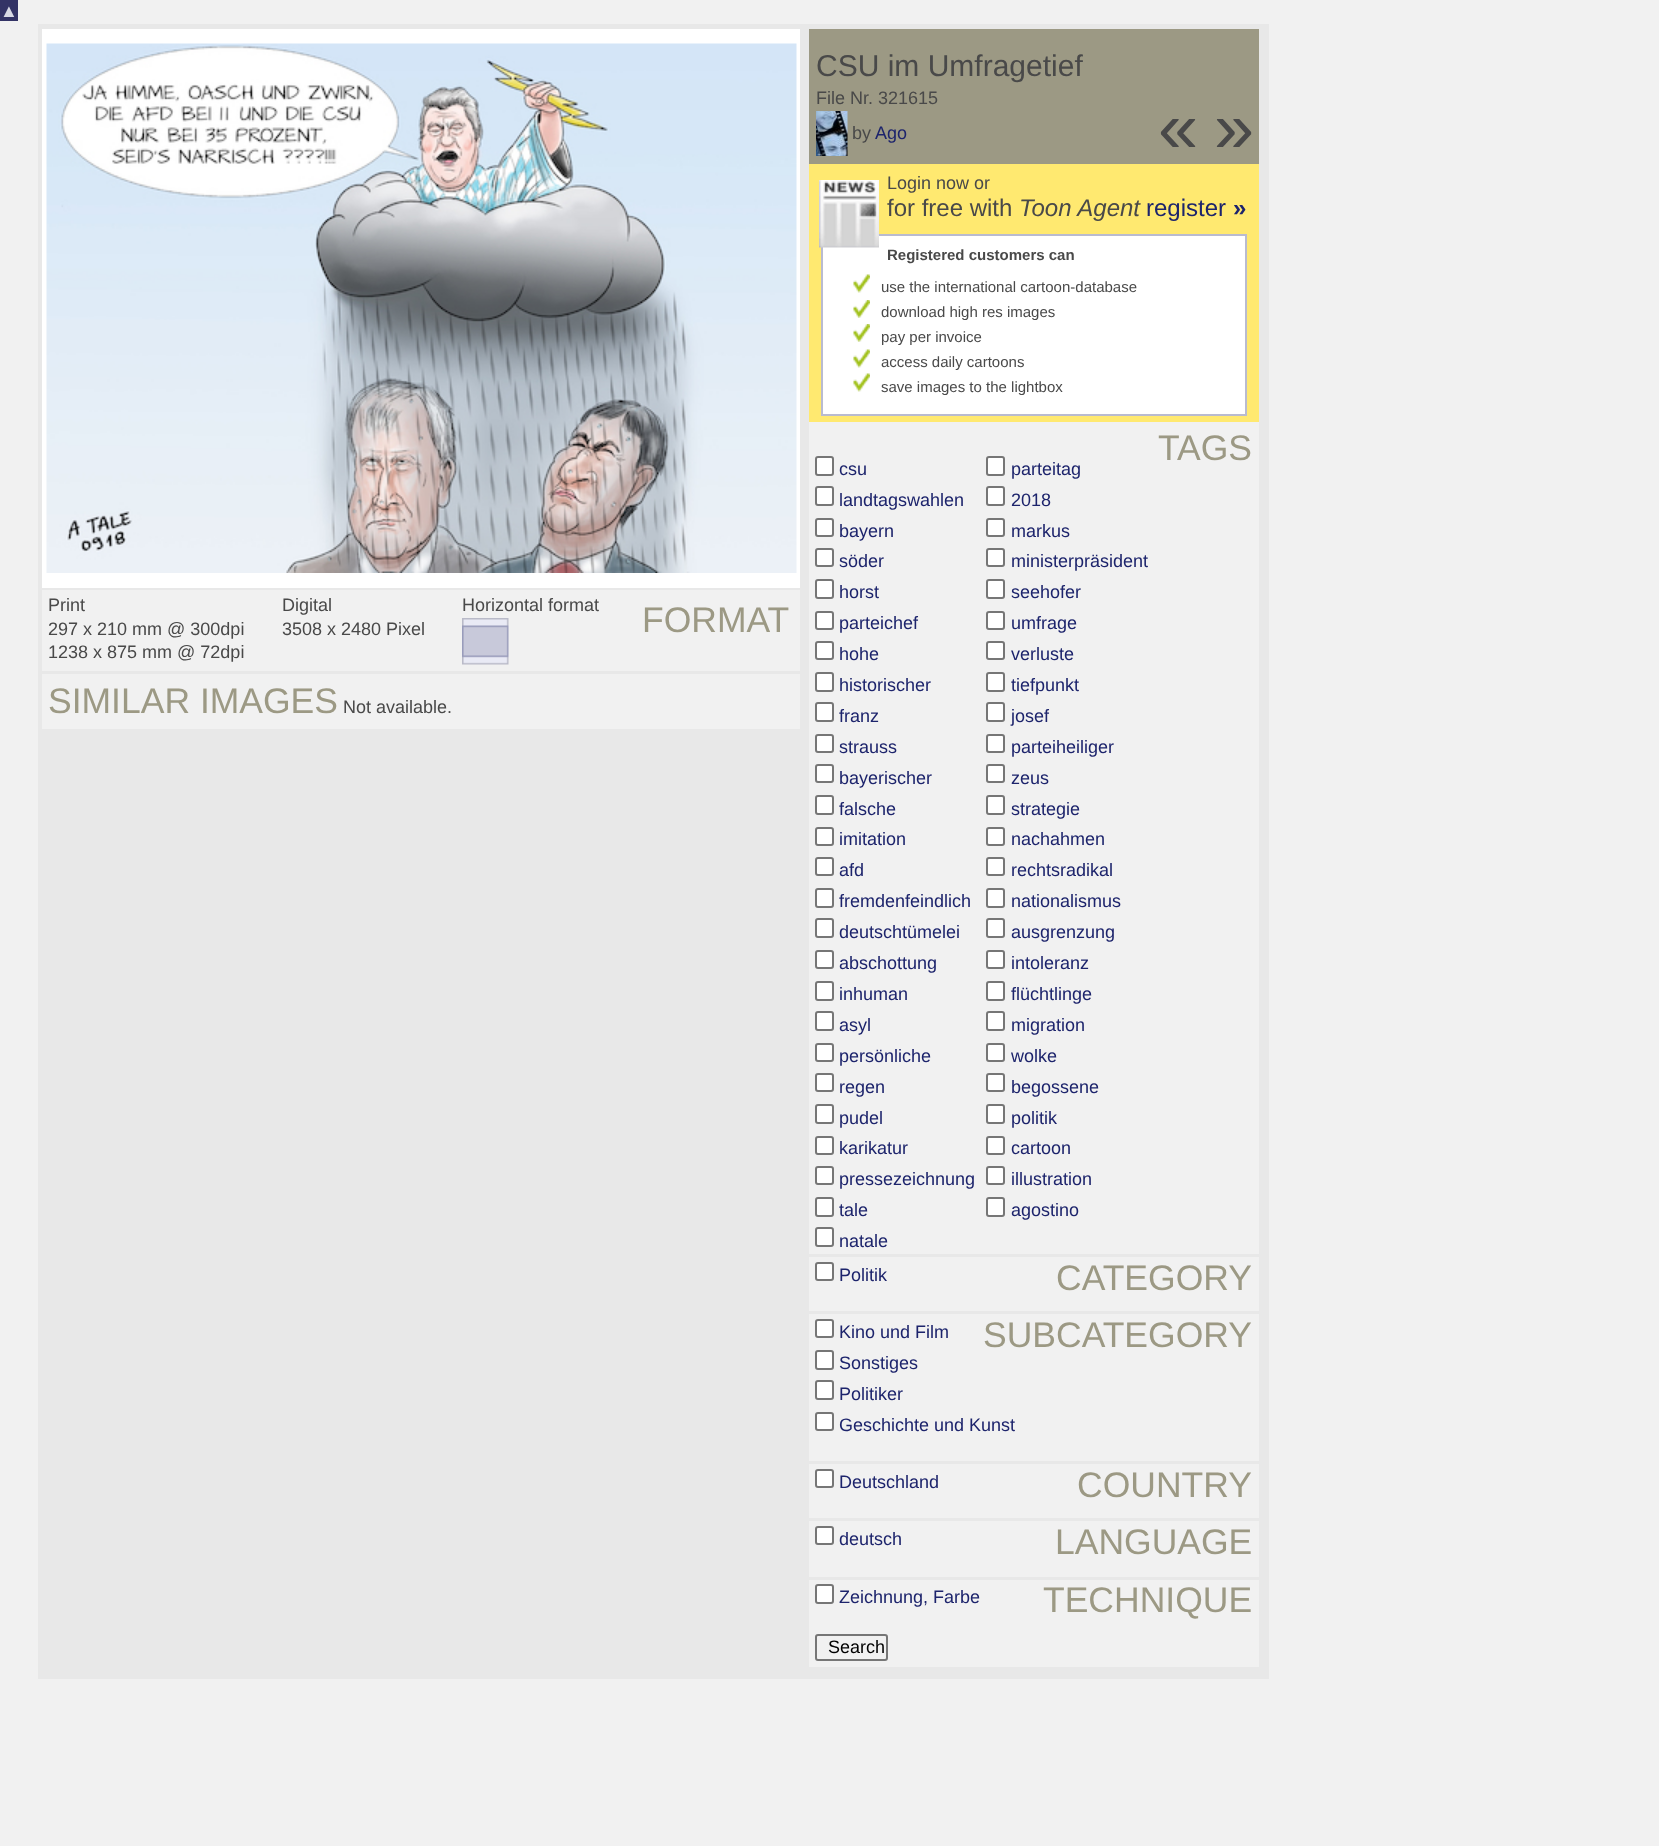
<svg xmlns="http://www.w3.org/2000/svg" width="1659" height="1846">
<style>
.a{font:18px Liberation Sans;fill:#d8d9e5}
.b{font:18px Liberation Sans;fill:#494949}
.c{font:35.5px Liberation Sans;fill:#9c9984}
.d{font:30px Liberation Sans;fill:#494949}
.e{font:18px Liberation Sans;fill:#1d246c}
.f{font:72px Liberation Sans;fill:#494949}
.g{font:24px Liberation Sans;fill:#494949}
.h{font:italic 24px Liberation Sans;fill:#494949}
.i{font:24px Liberation Sans;fill:#1d246c}
.j{font:bold 24px Liberation Sans;fill:#1d246c}
.k{font:bold 15px Liberation Sans;fill:#494949}
.l{font:15px Liberation Sans;fill:#494949}
.m{font:18px Liberation Sans;fill:#000}
</style>
<rect width="100%" height="100%" fill="#f1f1f1"/>
<path fill="#336" d="M0 0h18v21H0z"/>
<path fill="#e8e8e8" d="M38 24h1231v1655H38z"/>
<path fill="#fff" d="M42 29h758v559H42z"/>
<image href="1.png" x="46" y="43" width="751" height="530"/>
<path fill="#f1f1f1" d="M42 590h758v81H42z"/>
<image href="2.png" x="462" y="618" width="47" height="47"/>
<path fill="#f1f1f1" d="M42 674h758v55H42z"/>
<path fill="#9c9984" d="M809 29h450v135H809z"/>
<image href="3.png" x="816" y="111" width="32" height="45"/>
<path fill="#ffe970" d="M809 164h450v258H809z"/>
<path fill="#fff" stroke="#b9bbd0" stroke-width="2" d="M822 235h424v180H822z"/>
<image href="4.png" x="819" y="180" width="60" height="68"/>
<image href="5.png" x="853" y="274" width="17" height="19"/>
<image href="6.png" x="853" y="300" width="17" height="18"/>
<image href="6.png" x="853" y="324" width="17" height="18"/>
<image href="5.png" x="853" y="349" width="17" height="19"/>
<image href="5.png" x="853" y="373" width="17" height="19"/>
<path fill="#f1f1f1" d="M809 422h450v1245H809z"/>
<rect fill="#fff" stroke="#767676" stroke-width="2" x="816" y="457" width="17" height="18" rx="2"/>
<rect fill="#fff" stroke="#767676" stroke-width="2" x="987" y="457" width="17" height="18" rx="2"/>
<rect fill="#fff" stroke="#767676" stroke-width="2" x="816" y="487" width="17" height="18" rx="2"/>
<rect fill="#fff" stroke="#767676" stroke-width="2" x="987" y="487" width="17" height="18" rx="2"/>
<rect fill="#fff" stroke="#767676" stroke-width="2" x="816" y="519" width="17" height="17" rx="2"/>
<rect fill="#fff" stroke="#767676" stroke-width="2" x="987" y="519" width="17" height="17" rx="2"/>
<rect fill="#fff" stroke="#767676" stroke-width="2" x="816" y="549" width="17" height="17" rx="2"/>
<rect fill="#fff" stroke="#767676" stroke-width="2" x="987" y="549" width="17" height="17" rx="2"/>
<rect fill="#fff" stroke="#767676" stroke-width="2" x="816" y="580" width="17" height="18" rx="2"/>
<rect fill="#fff" stroke="#767676" stroke-width="2" x="987" y="580" width="17" height="18" rx="2"/>
<rect fill="#fff" stroke="#767676" stroke-width="2" x="816" y="612" width="17" height="17" rx="2"/>
<rect fill="#fff" stroke="#767676" stroke-width="2" x="987" y="612" width="17" height="17" rx="2"/>
<rect fill="#fff" stroke="#767676" stroke-width="2" x="816" y="642" width="17" height="17" rx="2"/>
<rect fill="#fff" stroke="#767676" stroke-width="2" x="987" y="642" width="17" height="17" rx="2"/>
<rect fill="#fff" stroke="#767676" stroke-width="2" x="816" y="673" width="17" height="18" rx="2"/>
<rect fill="#fff" stroke="#767676" stroke-width="2" x="987" y="673" width="17" height="18" rx="2"/>
<rect fill="#fff" stroke="#767676" stroke-width="2" x="816" y="703" width="17" height="18" rx="2"/>
<rect fill="#fff" stroke="#767676" stroke-width="2" x="987" y="703" width="17" height="18" rx="2"/>
<rect fill="#fff" stroke="#767676" stroke-width="2" x="816" y="735" width="17" height="17" rx="2"/>
<rect fill="#fff" stroke="#767676" stroke-width="2" x="987" y="735" width="17" height="17" rx="2"/>
<rect fill="#fff" stroke="#767676" stroke-width="2" x="816" y="765" width="17" height="17" rx="2"/>
<rect fill="#fff" stroke="#767676" stroke-width="2" x="987" y="765" width="17" height="17" rx="2"/>
<rect fill="#fff" stroke="#767676" stroke-width="2" x="816" y="796" width="17" height="18" rx="2"/>
<rect fill="#fff" stroke="#767676" stroke-width="2" x="987" y="796" width="17" height="18" rx="2"/>
<rect fill="#fff" stroke="#767676" stroke-width="2" x="816" y="828" width="17" height="17" rx="2"/>
<rect fill="#fff" stroke="#767676" stroke-width="2" x="987" y="828" width="17" height="17" rx="2"/>
<rect fill="#fff" stroke="#767676" stroke-width="2" x="816" y="858" width="17" height="17" rx="2"/>
<rect fill="#fff" stroke="#767676" stroke-width="2" x="987" y="858" width="17" height="17" rx="2"/>
<rect fill="#fff" stroke="#767676" stroke-width="2" x="816" y="889" width="17" height="18" rx="2"/>
<rect fill="#fff" stroke="#767676" stroke-width="2" x="987" y="889" width="17" height="18" rx="2"/>
<rect fill="#fff" stroke="#767676" stroke-width="2" x="816" y="919" width="17" height="18" rx="2"/>
<rect fill="#fff" stroke="#767676" stroke-width="2" x="987" y="919" width="17" height="18" rx="2"/>
<rect fill="#fff" stroke="#767676" stroke-width="2" x="816" y="951" width="17" height="17" rx="2"/>
<rect fill="#fff" stroke="#767676" stroke-width="2" x="987" y="951" width="17" height="17" rx="2"/>
<rect fill="#fff" stroke="#767676" stroke-width="2" x="816" y="982" width="17" height="18" rx="2"/>
<rect fill="#fff" stroke="#767676" stroke-width="2" x="987" y="982" width="17" height="18" rx="2"/>
<rect fill="#fff" stroke="#767676" stroke-width="2" x="816" y="1012" width="17" height="18" rx="2"/>
<rect fill="#fff" stroke="#767676" stroke-width="2" x="987" y="1012" width="17" height="18" rx="2"/>
<rect fill="#fff" stroke="#767676" stroke-width="2" x="816" y="1044" width="17" height="17" rx="2"/>
<rect fill="#fff" stroke="#767676" stroke-width="2" x="987" y="1044" width="17" height="17" rx="2"/>
<rect fill="#fff" stroke="#767676" stroke-width="2" x="816" y="1074" width="17" height="17" rx="2"/>
<rect fill="#fff" stroke="#767676" stroke-width="2" x="987" y="1074" width="17" height="17" rx="2"/>
<rect fill="#fff" stroke="#767676" stroke-width="2" x="816" y="1105" width="17" height="18" rx="2"/>
<rect fill="#fff" stroke="#767676" stroke-width="2" x="987" y="1105" width="17" height="18" rx="2"/>
<rect fill="#fff" stroke="#767676" stroke-width="2" x="816" y="1137" width="17" height="17" rx="2"/>
<rect fill="#fff" stroke="#767676" stroke-width="2" x="987" y="1137" width="17" height="17" rx="2"/>
<rect fill="#fff" stroke="#767676" stroke-width="2" x="816" y="1167" width="17" height="17" rx="2"/>
<rect fill="#fff" stroke="#767676" stroke-width="2" x="987" y="1167" width="17" height="17" rx="2"/>
<rect fill="#fff" stroke="#767676" stroke-width="2" x="816" y="1198" width="17" height="18" rx="2"/>
<rect fill="#fff" stroke="#767676" stroke-width="2" x="987" y="1198" width="17" height="18" rx="2"/>
<rect fill="#fff" stroke="#767676" stroke-width="2" x="816" y="1228" width="17" height="18" rx="2"/>
<path fill="#e8e8e8" d="M809 1254h450v3H809z"/>
<rect fill="#fff" stroke="#767676" stroke-width="2" x="816" y="1263" width="17" height="17" rx="2"/>
<path fill="#e8e8e8" d="M809 1311h450v3H809z"/>
<rect fill="#fff" stroke="#767676" stroke-width="2" x="816" y="1320" width="17" height="17" rx="2"/>
<rect fill="#fff" stroke="#767676" stroke-width="2" x="816" y="1351" width="17" height="18" rx="2"/>
<rect fill="#fff" stroke="#767676" stroke-width="2" x="816" y="1381" width="17" height="18" rx="2"/>
<rect fill="#fff" stroke="#767676" stroke-width="2" x="816" y="1413" width="17" height="17" rx="2"/>
<path fill="#e8e8e8" d="M809 1461h450v3H809z"/>
<rect fill="#fff" stroke="#767676" stroke-width="2" x="816" y="1470" width="17" height="17" rx="2"/>
<path fill="#e8e8e8" d="M809 1518h450v3H809z"/>
<rect fill="#fff" stroke="#767676" stroke-width="2" x="816" y="1527" width="17" height="17" rx="2"/>
<path fill="#e8e8e8" d="M809 1577h450v3H809z"/>
<rect fill="#fff" stroke="#767676" stroke-width="2" x="816" y="1585" width="17" height="18" rx="2"/>
<rect fill="none" stroke="#767676" stroke-width="2" x="816" y="1635" width="71" height="25" rx="2"/>
<text class="a" x="0" y="17">▲</text>
<text class="b" x="48" y="611">Print</text>
<text class="b" x="48" y="635">297 x 210 mm @ 300dpi</text>
<text class="b" x="48" y="658">1238 x 875 mm @ 72dpi</text>
<text class="b" x="282" y="611">Digital</text>
<text class="b" x="282" y="635">3508 x 2480 Pixel</text>
<text class="b" x="462" y="611">Horizontal format</text>
<text class="c" x="642" y="632">FORMAT</text>
<text class="c" x="48" y="713">SIMILAR IMAGES</text>
<text class="b" x="343" y="713">Not available.</text>
<text class="d" x="816" y="76">CSU im Umfragetief</text>
<text class="b" x="816" y="104">File Nr. 321615</text>
<text class="b" x="852" y="139">by</text>
<text class="e" x="875" y="139">Ago</text>
<text class="f" x="1158" y="152">«</text>
<text class="f" x="1214" y="152">»</text>
<text class="b" x="887" y="189">Login now or</text>
<text class="g" x="887" y="216">for free with</text>
<text class="h" x="1019" y="216">Toon Agent</text>
<text class="i" x="1146" y="216">register</text>
<text class="j" x="1233" y="216">»</text>
<text class="k" x="887" y="260">Registered customers can</text>
<text class="l" x="881" y="292">use the international cartoon-database</text>
<text class="l" x="881" y="317">download high res images</text>
<text class="l" x="881" y="342">pay per invoice</text>
<text class="l" x="881" y="367">access daily cartoons</text>
<text class="l" x="881" y="392">save images to the lightbox</text>
<text class="c" x="1158" y="460">TAGS</text>
<text class="e" x="839" y="475">csu</text>
<text class="e" x="1011" y="475">parteitag</text>
<text class="e" x="839" y="506">landtagswahlen</text>
<text class="e" x="1011" y="506">2018</text>
<text class="e" x="839" y="537">bayern</text>
<text class="e" x="1011" y="537">markus</text>
<text class="e" x="839" y="567">söder</text>
<text class="e" x="1011" y="567">ministerpräsident</text>
<text class="e" x="839" y="598">horst</text>
<text class="e" x="1011" y="598">seehofer</text>
<text class="e" x="839" y="629">parteichef</text>
<text class="e" x="1011" y="629">umfrage</text>
<text class="e" x="839" y="660">hohe</text>
<text class="e" x="1011" y="660">verluste</text>
<text class="e" x="839" y="691">historischer</text>
<text class="e" x="1011" y="691">tiefpunkt</text>
<text class="e" x="839" y="722">franz</text>
<text class="e" x="1011" y="722">josef</text>
<text class="e" x="839" y="753">strauss</text>
<text class="e" x="1011" y="753">parteiheiliger</text>
<text class="e" x="839" y="784">bayerischer</text>
<text class="e" x="1011" y="784">zeus</text>
<text class="e" x="839" y="815">falsche</text>
<text class="e" x="1011" y="815">strategie</text>
<text class="e" x="839" y="845">imitation</text>
<text class="e" x="1011" y="845">nachahmen</text>
<text class="e" x="839" y="876">afd</text>
<text class="e" x="1011" y="876">rechtsradikal</text>
<text class="e" x="839" y="907">fremdenfeindlich</text>
<text class="e" x="1011" y="907">nationalismus</text>
<text class="e" x="839" y="938">deutschtümelei</text>
<text class="e" x="1011" y="938">ausgrenzung</text>
<text class="e" x="839" y="969">abschottung</text>
<text class="e" x="1011" y="969">intoleranz</text>
<text class="e" x="839" y="1000">inhuman</text>
<text class="e" x="1011" y="1000">flüchtlinge</text>
<text class="e" x="839" y="1031">asyl</text>
<text class="e" x="1011" y="1031">migration</text>
<text class="e" x="839" y="1062">persönliche</text>
<text class="e" x="1011" y="1062">wolke</text>
<text class="e" x="839" y="1093">regen</text>
<text class="e" x="1011" y="1093">begossene</text>
<text class="e" x="839" y="1124">pudel</text>
<text class="e" x="1011" y="1124">politik</text>
<text class="e" x="839" y="1154">karikatur</text>
<text class="e" x="1011" y="1154">cartoon</text>
<text class="e" x="839" y="1185">pressezeichnung</text>
<text class="e" x="1011" y="1185">illustration</text>
<text class="e" x="839" y="1216">tale</text>
<text class="e" x="1011" y="1216">agostino</text>
<text class="e" x="839" y="1247">natale</text>
<text class="e" x="839" y="1281">Politik</text>
<text class="c" x="1056" y="1290">CATEGORY</text>
<text class="e" x="839" y="1338">Kino und Film</text>
<text class="c" x="983" y="1347">SUBCATEGORY</text>
<text class="e" x="839" y="1369">Sonstiges</text>
<text class="e" x="839" y="1400">Politiker</text>
<text class="e" x="839" y="1431">Geschichte und Kunst</text>
<text class="e" x="839" y="1488">Deutschland</text>
<text class="c" x="1077" y="1497">COUNTRY</text>
<text class="e" x="839" y="1545">deutsch</text>
<text class="c" x="1055" y="1554">LANGUAGE</text>
<text class="e" x="839" y="1603">Zeichnung, Farbe</text>
<text class="c" x="1043" y="1612">TECHNIQUE</text>
<text class="m" x="828" y="1653">Search</text>
</svg>
